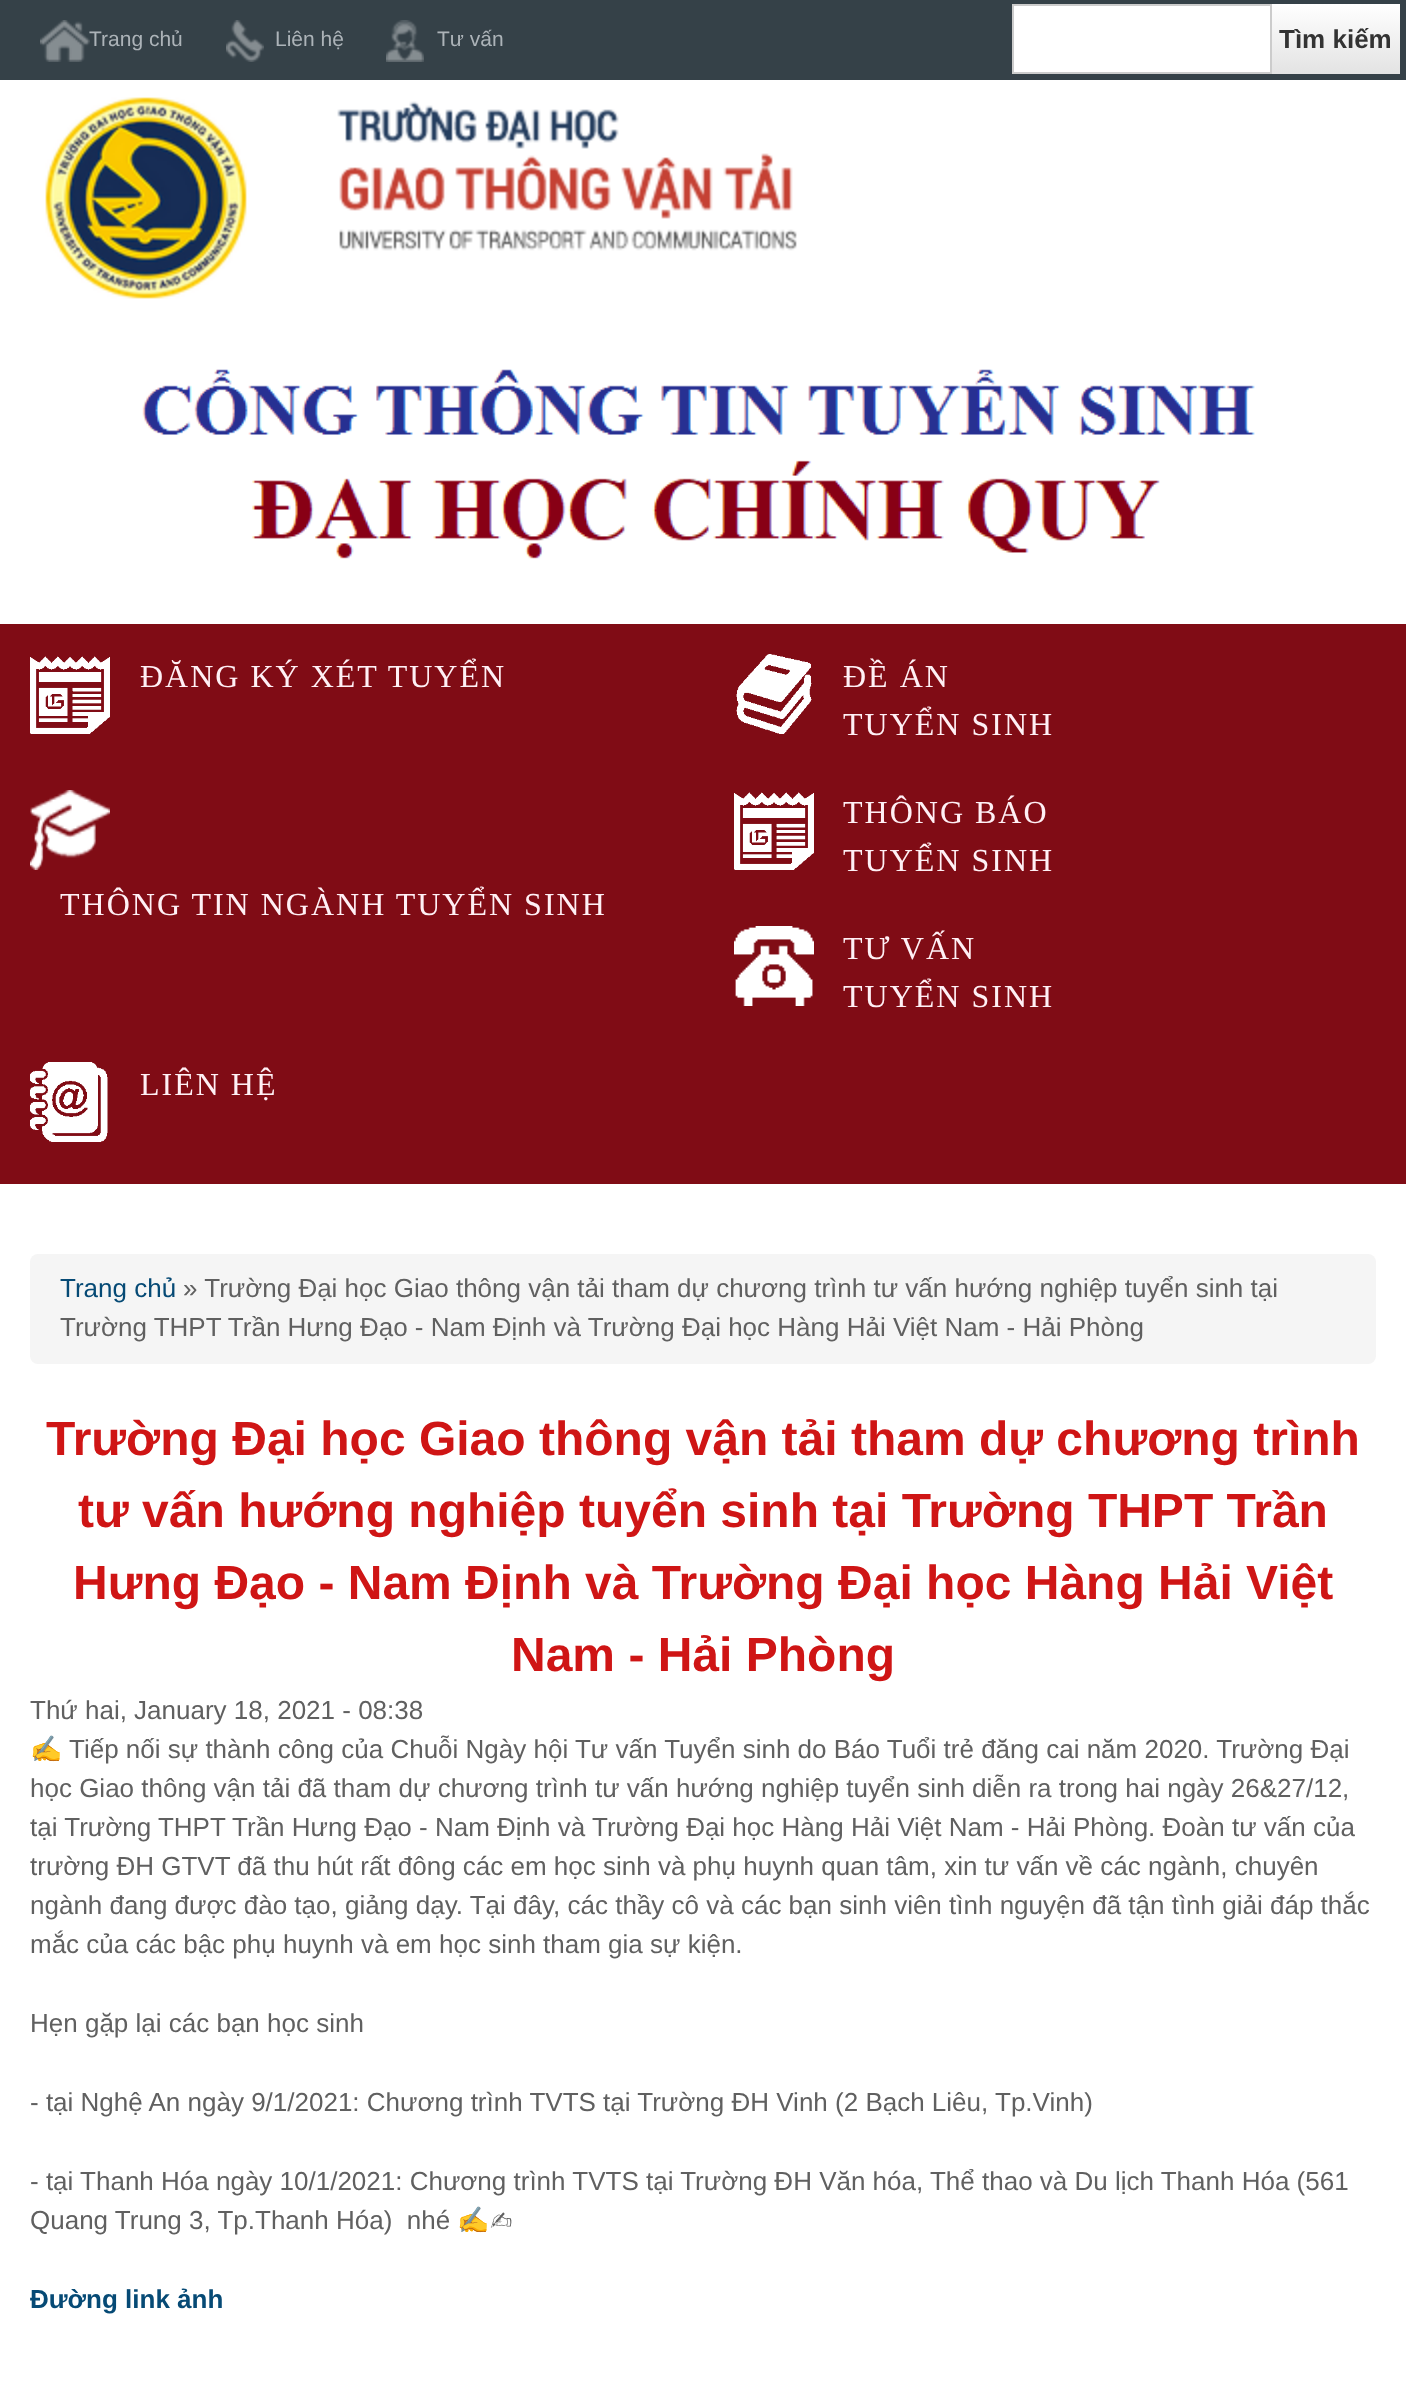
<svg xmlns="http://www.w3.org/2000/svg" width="1406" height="2396">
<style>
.a{font:21px Liberation Sans;fill:#acb3b8}
.b{font:bold 26px Liberation Sans;fill:#333}
.c{font:32px Liberation Serif;letter-spacing:2px;fill:#fff0f5}
.d{font:26px Liberation Sans;fill:#064a75}
.e{font:26px Liberation Sans;fill:#606060}
.f{font:bold 48px Liberation Sans;fill:#cf1515}
.g{font:26px Noto Color Emoji;fill:#606060}
.h{font:26px FreeSans;fill:#606060}
.i{font:bold 26px Liberation Sans;fill:#064a75}
</style>
<defs>
<linearGradient id="g1" gradientUnits="userSpaceOnUse" x1="1336" y1="4" x2="1336" y2="74"><stop offset="0" stop-color="#fff"/><stop offset="1" stop-color="#e3e3e3"/></linearGradient>
</defs>
<rect width="100%" height="100%" fill="#fff"/>
<path fill="#354148" d="M0 0h1406v80H0z"/>
<image href="1.png" x="40" y="20" width="50" height="42"/>
<image href="2.png" x="226" y="20" width="38" height="42"/>
<image href="3.png" x="386" y="20" width="38" height="42"/>
<path fill="#fff" stroke="#ccc" stroke-width="2" d="M1013 5h258v68H1013z"/>
<path fill="url(#g1)" d="M1272 4h128v70H1272z"/>
<image href="4.png" x="45" y="97" width="752" height="202"/>
<image href="5.png" x="142" y="369" width="1113" height="190"/>
<path fill="#800c15" d="M0 624h1406v560H0z"/>
<image href="6.png" x="30" y="656" width="80" height="78"/>
<image href="7.png" x="736" y="654" width="76" height="80"/>
<image href="8.png" x="734" y="792" width="80" height="78"/>
<image href="9.png" x="30" y="790" width="80" height="80"/>
<image href="10.png" x="734" y="926" width="80" height="80"/>
<image href="11.png" x="30" y="1062" width="78" height="80"/>
<rect fill="#f5f5f5" x="30" y="1254" width="1346" height="110" rx="8"/>
<text class="a" x="89" y="46">Trang chủ</text>
<text class="a" x="275" y="46">Liên hệ</text>
<text class="a" x="437" y="46">Tư vấn</text>
<text class="b" x="1279" y="48">Tìm kiếm</text>
<text class="c" x="140" y="687">ĐĂNG KÝ XÉT TUYỂN</text>
<text class="c" x="843" y="687">ĐỀ ÁN</text>
<text class="c" x="843" y="735">TUYỂN SINH</text>
<text class="c" x="843" y="823">THÔNG BÁO</text>
<text class="c" x="843" y="871">TUYỂN SINH</text>
<text class="c" x="60" y="915">THÔNG TIN NGÀNH TUYỂN SINH</text>
<text class="c" x="843" y="959">TƯ VẤN</text>
<text class="c" x="843" y="1007">TUYỂN SINH</text>
<text class="c" x="140" y="1095">LIÊN HỆ</text>
<text class="d" x="60" y="1297">Trang chủ</text>
<text class="e" x="183" y="1297">» Trường Đại học Giao thông vận tải tham dự chương trình tư vấn hướng nghiệp tuyển sinh tại</text>
<text class="e" x="60" y="1336">Trường THPT Trần Hưng Đạo - Nam Định và Trường Đại học Hàng Hải Việt Nam - Hải Phòng</text>
<text class="f" x="46" y="1455">Trường Đại học Giao thông vận tải tham dự chương trình</text>
<text class="f" x="78" y="1527">tư vấn hướng nghiệp tuyển sinh tại Trường THPT Trần</text>
<text class="f" x="73" y="1599">Hưng Đạo - Nam Định và Trường Đại học Hàng Hải Việt</text>
<text class="f" x="511" y="1671">Nam - Hải Phòng</text>
<text class="e" x="30" y="1719">Thứ hai, January 18, 2021 - 08:38</text>
<text class="g" x="30" y="1758">✍️</text>
<text class="e" x="69" y="1758">Tiếp nối sự thành công của Chuỗi Ngày hội Tư vấn Tuyển sinh do Báo Tuổi trẻ đăng cai năm 2020. Trường Đại</text>
<text class="e" x="30" y="1797">học Giao thông vận tải đã tham dự chương trình tư vấn hướng nghiệp tuyển sinh diễn ra trong hai ngày 26&amp;27/12,</text>
<text class="e" x="30" y="1836">tại Trường THPT Trần Hưng Đạo - Nam Định và Trường Đại học Hàng Hải Việt Nam - Hải Phòng. Đoàn tư vấn của</text>
<text class="e" x="30" y="1875">trường ĐH GTVT đã thu hút rất đông các em học sinh và phụ huynh quan tâm, xin tư vấn về các ngành, chuyên</text>
<text class="e" x="30" y="1914">ngành đang được đào tạo, giảng dạy. Tại đây, các thầy cô và các bạn sinh viên tình nguyện đã tận tình giải đáp thắc</text>
<text class="e" x="30" y="1953">mắc của các bậc phụ huynh và em học sinh tham gia sự kiện.</text>
<text class="e" x="30" y="2032">Hẹn gặp lại các bạn học sinh</text>
<text class="e" x="30" y="2111">- tại Nghệ An ngày 9/1/2021: Chương trình TVTS tại Trường ĐH Vinh (2 Bạch Liêu, Tp.Vinh)</text>
<text class="e" x="30" y="2190">- tại Thanh Hóa ngày 10/1/2021: Chương trình TVTS tại Trường ĐH Văn hóa, Thể thao và Du lịch Thanh Hóa (561</text>
<text class="e" xml:space="preserve" x="30" y="2229">Quang Trung 3, Tp.Thanh Hóa)  nhé</text>
<text class="g" x="457" y="2229">✍️</text>
<text class="h" x="490" y="2229">✍</text>
<text class="i" x="30" y="2308">Đường link ảnh</text>
</svg>
